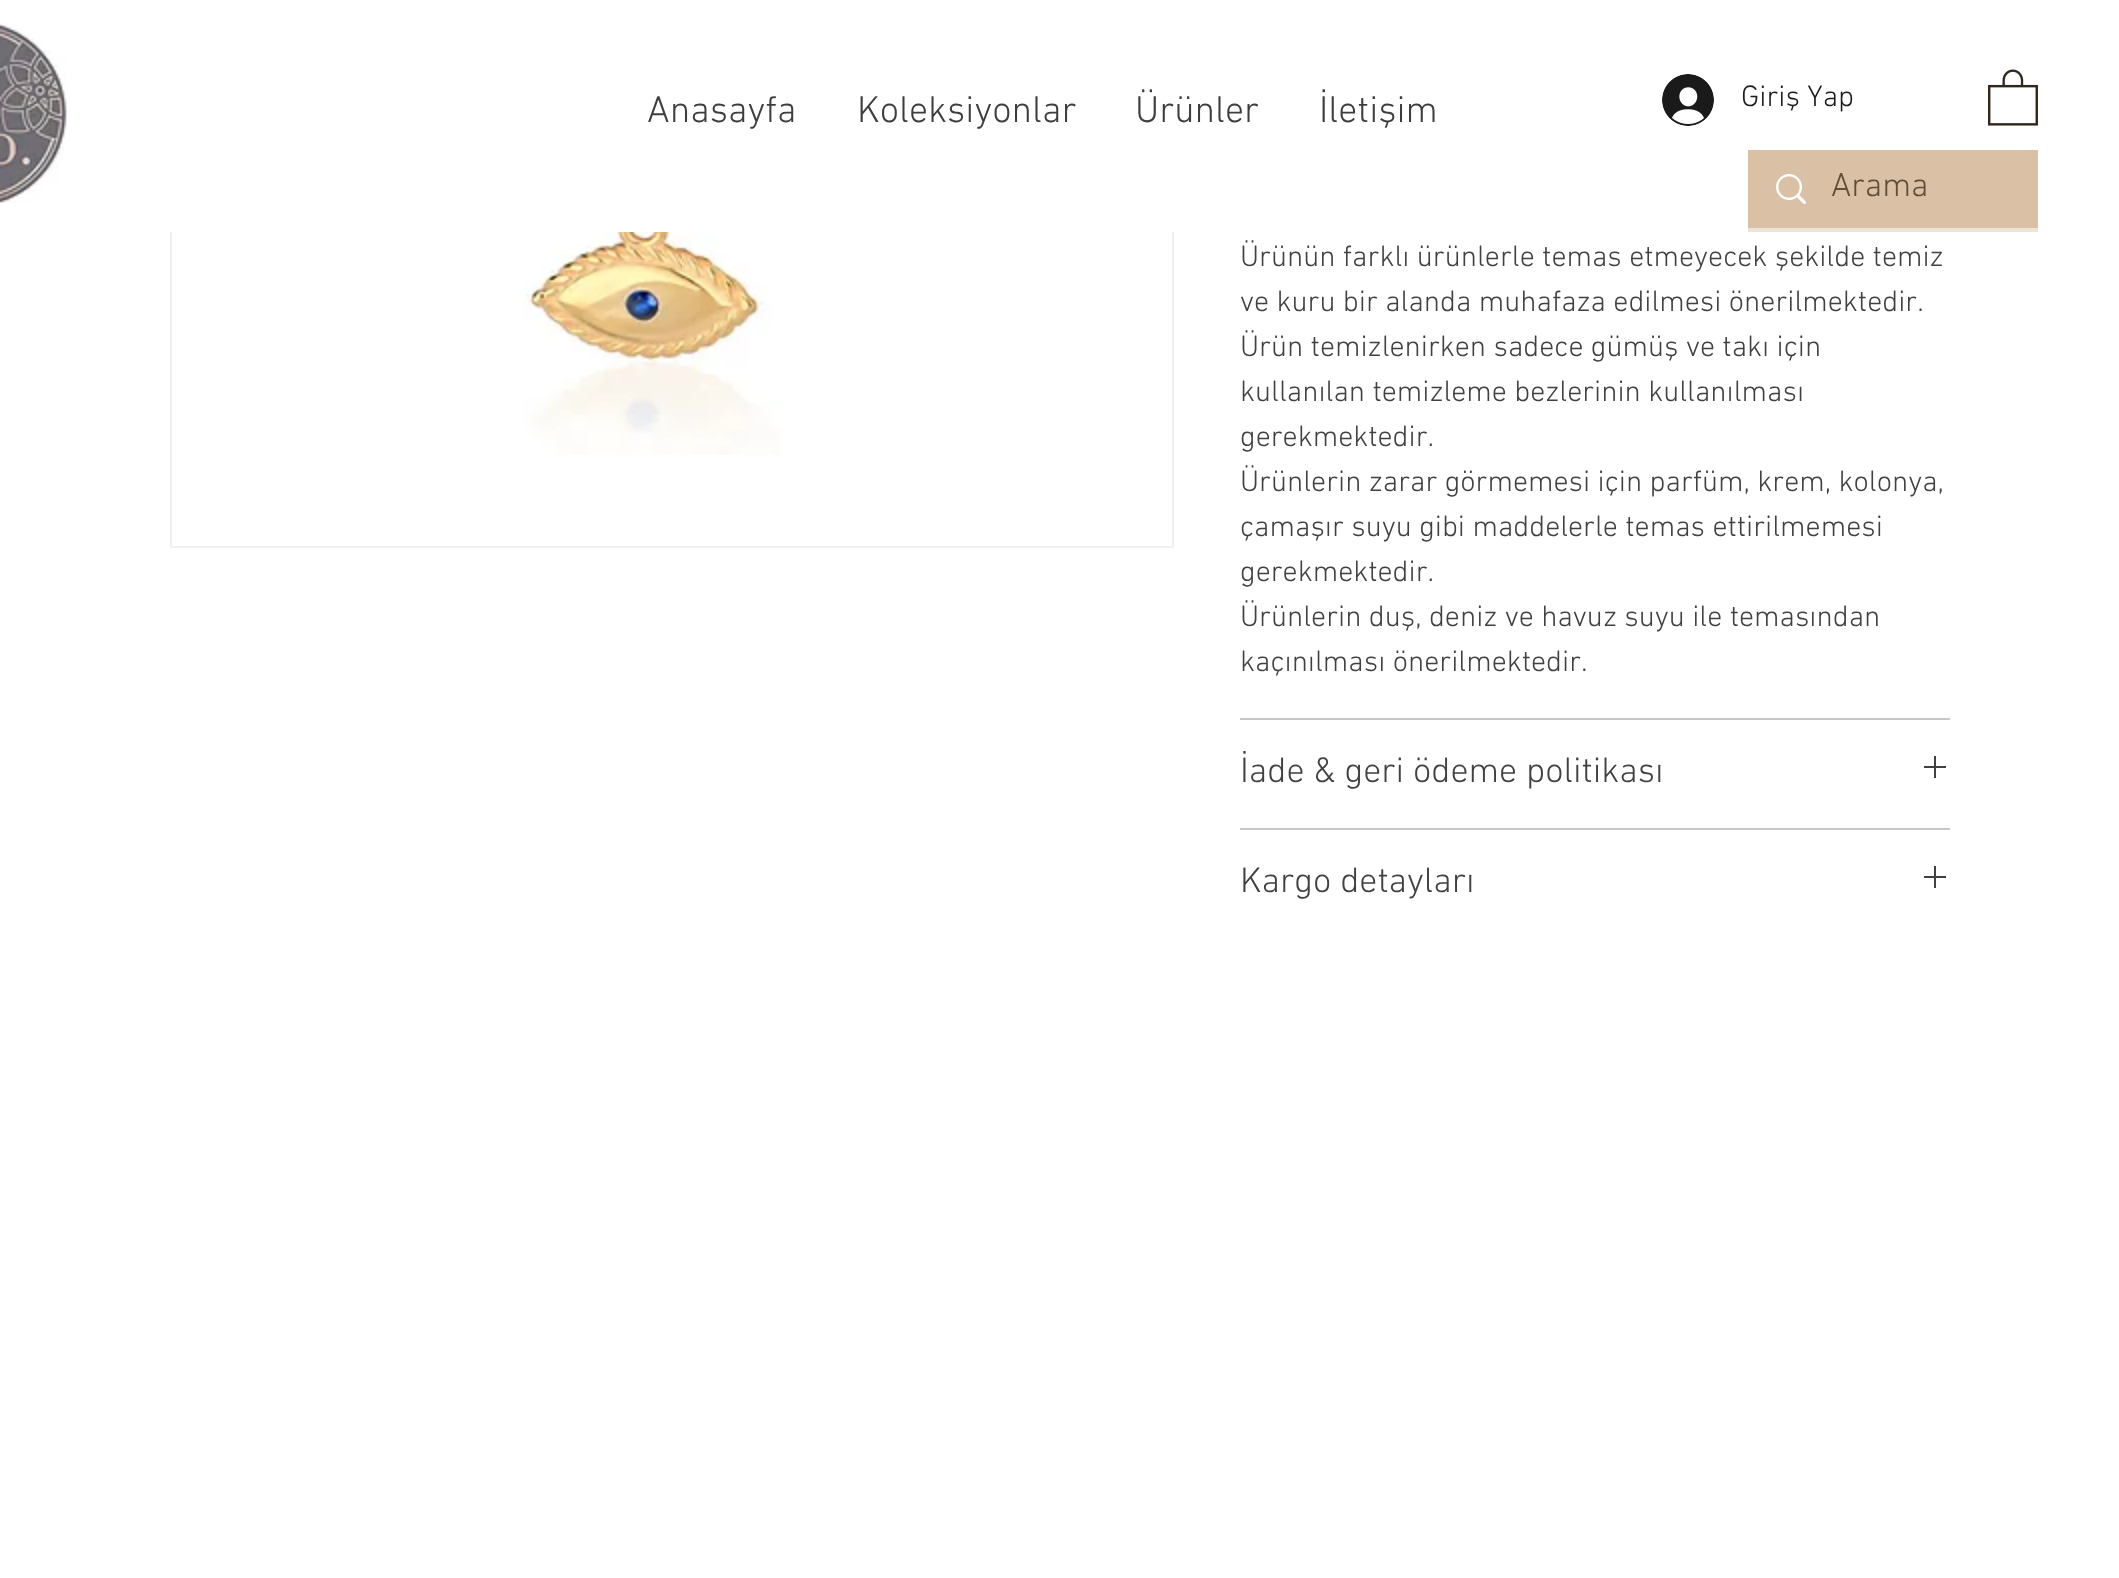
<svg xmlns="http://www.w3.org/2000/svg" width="2119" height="1578">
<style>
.a{font:300 38px 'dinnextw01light';fill:#3d3d3b}
.b{font:300 30px 'dinnextw01light';fill:#1a1a1a}
.c{font:300 34px 'dinnextw01light';fill:#624d37}
.d{font:300 30px 'dinnextw01light';fill:#414141}
.e{font:300 36px 'dinnextw01light';fill:#414141}
</style>
<rect width="100%" height="100%" fill="#fff"/>
<path fill="none" stroke="#f0f0f0" stroke-width="2" d="M171 -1h1002v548H171z"/>
<path fill="#fff" d="M170 0h1004v232H170z"/>
<image href="1.png" x="0" y="23" width="67" height="180"/>
<image href="2.png" x="1662" y="74" width="52" height="52"/>
<image href="3.png" x="1988" y="69" width="50" height="57"/>
<path fill="#ebe5d6" d="M1748 228h290v4H1748z"/>
<path fill="#dac0a4" d="M1748 150h290v78H1748z"/>
<image href="4.png" x="1776" y="174" width="30" height="30"/>
<image href="5.png" x="523" y="232" width="338" height="223"/>
<path fill="#c7c7c7" d="M1240 718h710v2H1240z"/>
<path fill="#c7c7c7" d="M1240 828h710v2H1240z"/>
<image href="6.png" x="1924" y="756" width="22" height="22"/>
<image href="6.png" x="1924" y="866" width="22" height="22"/>
<text class="a" x="647" y="122">Anasayfa</text>
<text class="a" x="857" y="122">Koleksiyonlar</text>
<text class="a" x="1135" y="122">Ürünler</text>
<text class="a" x="1319" y="122">İletişim</text>
<text class="b" x="1741" y="106">Giriş Yap</text>
<text class="c" x="1831" y="196">Arama</text>
<text class="d" x="1240" y="266">Ürünün farklı ürünlerle temas etmeyecek şekilde temiz</text>
<text class="d" x="1240" y="311">ve kuru bir alanda muhafaza edilmesi önerilmektedir.</text>
<text class="d" x="1240" y="356">Ürün temizlenirken sadece gümüş ve takı için</text>
<text class="d" x="1240" y="401">kullanılan temizleme bezlerinin kullanılması</text>
<text class="d" x="1240" y="446">gerekmektedir.</text>
<text class="d" x="1240" y="491">Ürünlerin zarar görmemesi için parfüm, krem, kolonya,</text>
<text class="d" x="1240" y="536">çamaşır suyu gibi maddelerle temas ettirilmemesi</text>
<text class="d" x="1240" y="581">gerekmektedir.</text>
<text class="d" x="1240" y="626">Ürünlerin duş, deniz ve havuz suyu ile temasından</text>
<text class="d" x="1240" y="671">kaçınılması önerilmektedir.</text>
<text class="e" x="1240" y="782">İade &amp; geri ödeme politikası</text>
<text class="e" x="1240" y="892">Kargo detayları</text>
</svg>
